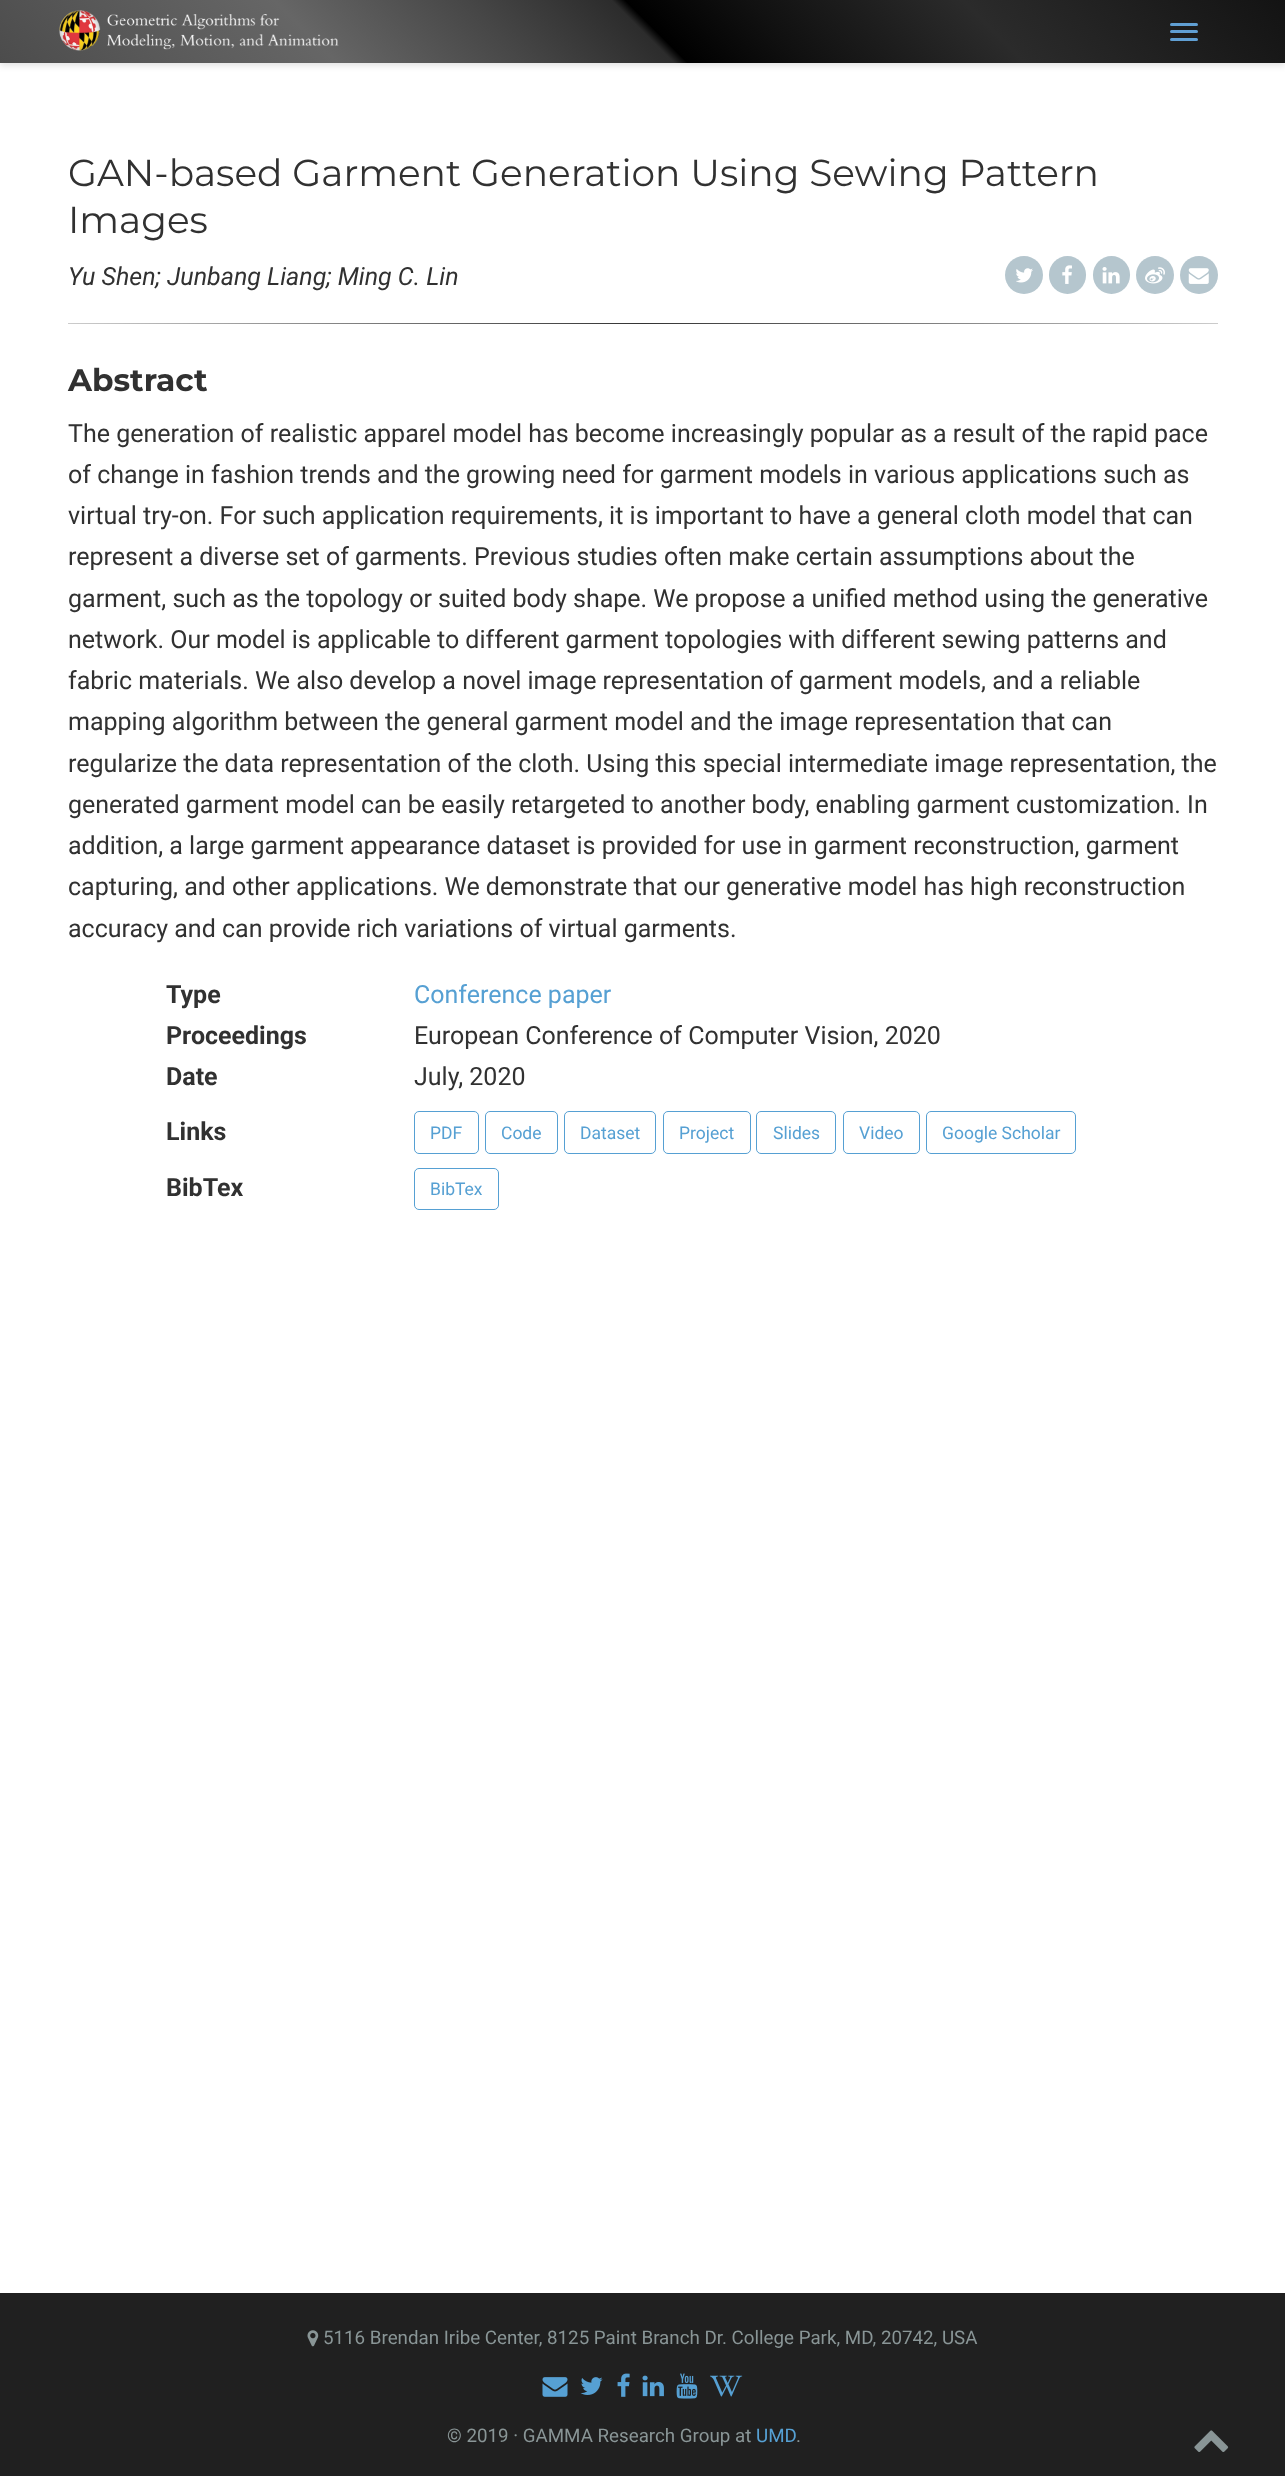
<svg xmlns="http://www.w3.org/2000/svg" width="1285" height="2476">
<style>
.a{font:37.5px Montserrat;fill:#313131}
.b{font:italic 25px Roboto;fill:#313131}
.c{font:bold 31.25px Montserrat;fill:#313131}
.d{font:25px Roboto;fill:#313131}
.e{font:bold 25px Roboto;fill:#313131}
.f{font:25px Roboto;fill:#56a0d3}
.g{font:17.5px Roboto;fill:#56a0d3}
.h{font:18.75px Roboto;fill:#899596}
.i{font:18.75px Roboto;fill:#56a0d3}
</style>
<defs>
<linearGradient id="g1" gradientUnits="userSpaceOnUse" x1="306" y1="368" x2="979" y2="-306"><stop offset="0" stop-color="#4c4c4c"/><stop offset="0.12" stop-color="#595959"/><stop offset="0.25" stop-color="#666"/><stop offset="0.39" stop-color="#474747"/><stop offset="0.5" stop-color="#2c2c2c"/><stop offset="0.51" stop-color="#000"/><stop offset="0.6" stop-color="#111"/><stop offset="0.76" stop-color="#2b2b2b"/><stop offset="0.91" stop-color="#1c1c1c"/><stop offset="1" stop-color="#131313"/></linearGradient>
<linearGradient id="g2" gradientUnits="userSpaceOnUse" x1="68" y1="323" x2="1218" y2="323"><stop offset="0" stop-color="#ccc"/><stop offset="0.5" stop-color="#333"/><stop offset="1" stop-color="#ccc"/></linearGradient>
</defs>
<rect width="100%" height="100%" fill="#fff"/>
<path fill="#0000001c" filter="blur(3px)" d="M0 4h1285v62H0z"/>
<path fill="url(#g1)" d="M0 0h1285v63H0z"/>
<image href="1.png" x="59" y="10" width="280" height="41"/>
<rect fill="#609fd3" x="1170" y="23" width="28" height="3" rx="1.5"/>
<rect fill="#609fd3" x="1170" y="30" width="28" height="3" rx="1.5"/>
<rect fill="#609fd3" x="1170" y="38" width="28" height="3" rx="1.5"/>
<circle fill="#b5c6ce" cx="1024" cy="275" r="19"/>
<image href="2.png" x="1016" y="268" width="17" height="15"/>
<rect fill="#b5c6ce" x="1049" y="256" width="37" height="38" rx="18.5"/>
<image href="3.png" x="1062" y="265" width="10" height="19"/>
<rect fill="#b5c6ce" x="1093" y="256" width="37" height="38" rx="18.5"/>
<image href="4.png" x="1102" y="267" width="18" height="17"/>
<circle fill="#b5c6ce" cx="1155" cy="275" r="19"/>
<image href="5.png" x="1145" y="267" width="20" height="17"/>
<circle fill="#b5c6ce" cx="1199" cy="275" r="19"/>
<image href="6.png" x="1188" y="268" width="21" height="16"/>
<path fill="url(#g2)" d="M68 323h1150v1H68z"/>
<rect fill="none" stroke="#56a0d3" x="414.5" y="1111.5" width="64" height="42" rx="4.5"/>
<rect fill="none" stroke="#56a0d3" x="485.5" y="1111.5" width="72" height="42" rx="4.5"/>
<rect fill="none" stroke="#56a0d3" x="564.5" y="1111.5" width="91" height="42" rx="4.5"/>
<rect fill="none" stroke="#56a0d3" x="663.5" y="1111.5" width="87" height="42" rx="4.5"/>
<rect fill="none" stroke="#56a0d3" x="756.5" y="1111.5" width="79" height="42" rx="4.5"/>
<rect fill="none" stroke="#56a0d3" x="843.5" y="1111.5" width="76" height="42" rx="4.5"/>
<rect fill="none" stroke="#56a0d3" x="926.5" y="1111.5" width="149" height="42" rx="4.5"/>
<rect fill="none" stroke="#56a0d3" x="414.5" y="1168.5" width="84" height="41" rx="4.5"/>
<path fill="#202020" d="M0 2293h1285v183H0z"/>
<image href="7.png" x="307" y="2330" width="12" height="17"/>
<image href="8.png" x="542" y="2377" width="26" height="20"/>
<image href="9.png" x="580" y="2377" width="23" height="18"/>
<image href="10.png" x="617" y="2373" width="13" height="24"/>
<image href="11.png" x="642" y="2375" width="22" height="22"/>
<image href="12.png" x="676" y="2373" width="22" height="26"/>
<image href="13.png" x="710" y="2375" width="33" height="22"/>
<image href="14.png" x="1194" y="2430" width="35" height="22"/>
<text class="a" x="68" y="186">GAN-based Garment Generation Using Sewing Pattern</text>
<text class="a" x="68" y="233">Images</text>
<text class="b" x="68" y="285">Yu Shen; Junbang Liang; Ming C. Lin</text>
<text class="c" x="68" y="391">Abstract</text>
<text class="d" x="68" y="442">The generation of realistic apparel model has become increasingly popular as a result of the rapid pace</text>
<text class="d" x="68" y="483">of change in fashion trends and the growing need for garment models in various applications such as</text>
<text class="d" x="68" y="524">virtual try-on. For such application requirements, it is important to have a general cloth model that can</text>
<text class="d" x="68" y="565">represent a diverse set of garments. Previous studies often make certain assumptions about the</text>
<text class="d" x="68" y="607">garment, such as the topology or suited body shape. We propose a unified method using the generative</text>
<text class="d" x="68" y="648">network. Our model is applicable to different garment topologies with different sewing patterns and</text>
<text class="d" x="68" y="689">fabric materials. We also develop a novel image representation of garment models, and a reliable</text>
<text class="d" x="68" y="730">mapping algorithm between the general garment model and the image representation that can</text>
<text class="d" x="68" y="772">regularize the data representation of the cloth. Using this special intermediate image representation, the</text>
<text class="d" x="68" y="813">generated garment model can be easily retargeted to another body, enabling garment customization. In</text>
<text class="d" x="68" y="854">addition, a large garment appearance dataset is provided for use in garment reconstruction, garment</text>
<text class="d" x="68" y="895">capturing, and other applications. We demonstrate that our generative model has high reconstruction</text>
<text class="d" x="68" y="937">accuracy and can provide rich variations of virtual garments.</text>
<text class="e" x="166" y="1003">Type</text>
<text class="f" x="414" y="1003">Conference paper</text>
<text class="e" x="166" y="1044">Proceedings</text>
<text class="d" x="414" y="1044">European Conference of Computer Vision, 2020</text>
<text class="e" x="166" y="1085">Date</text>
<text class="d" x="414" y="1085">July, 2020</text>
<text class="e" x="166" y="1140">Links</text>
<text class="g" x="430" y="1139">PDF</text>
<text class="g" x="501" y="1139">Code</text>
<text class="g" x="580" y="1139">Dataset</text>
<text class="g" x="679" y="1139">Project</text>
<text class="g" x="773" y="1139">Slides</text>
<text class="g" x="859" y="1139">Video</text>
<text class="g" x="942" y="1139">Google Scholar</text>
<text class="e" x="166" y="1196">BibTex</text>
<text class="g" x="430" y="1195">BibTex</text>
<text class="h" x="323" y="2344">5116 Brendan Iribe Center, 8125 Paint Branch Dr. College Park, MD, 20742, USA</text>
<text class="h" x="447" y="2442">© 2019 · GAMMA Research Group at</text>
<text class="i" x="756" y="2442">UMD</text>
<text class="h" x="796" y="2442">.</text>
</svg>
